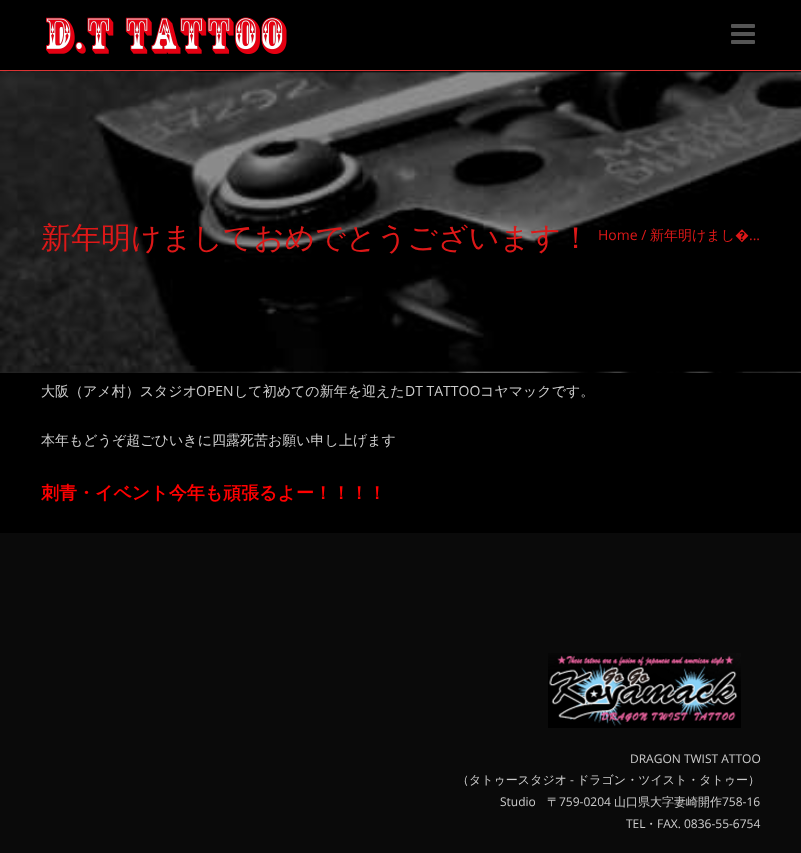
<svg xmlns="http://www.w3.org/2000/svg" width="801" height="853">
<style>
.a{font:500 30px WenQuanYi Zen Hei;fill:#dd1818}
.b{font:14px Open Sans;fill:#dd1818}
.c{font:500 14px WenQuanYi Zen Hei;fill:#dd1818}
.d{font:500 14px WenQuanYi Zen Hei;fill:#ccc}
.e{font:14px Open Sans;fill:#ccc}
.f{font:bold 18px WenQuanYi Zen Hei;fill:#f00}
.g{font:12px Open Sans;fill:#ccc}
.h{font:500 12px WenQuanYi Zen Hei;fill:#ccc}
</style>
<rect width="100%" height="100%" fill="#000"/>
<path fill="#d33" d="M0 70h801v1H0z"/>
<image href="1.png" x="46" y="17" width="241" height="37"/>
<image href="2.png" x="731" y="24" width="24" height="20"/>
<image href="3.png" x="0" y="71" width="801" height="302"/>
<path fill="#0a0a0a" d="M0 533h801v320H0z"/>
<image href="4.png" x="548" y="653" width="193" height="75"/>
<text class="a" x="41" y="248">新年明けましておめでとうございます！</text>
<text class="b" x="598" y="240">Home /</text>
<text class="c" x="650" y="240">新年明けまし</text>
<text class="b" x="735" y="240">�...</text>
<text class="d" x="41" y="396">大阪（アメ村）スタジオ</text>
<text class="e" x="196" y="396">OPEN</text>
<text class="d" x="234" y="396">して初めての新年を迎えた</text>
<text class="e" x="405" y="396">DT TATTOO</text>
<text class="d" x="480" y="396">コヤマックです。</text>
<text class="d" x="41" y="445">本年もどうぞ超ごひいきに四露死苦お願い申し上げます</text>
<text class="f" x="41" y="499">刺青・イベント今年も頑張るよー！！！！</text>
<text class="g" x="630" y="763">DRAGON TWIST ATTOO</text>
<text class="h" x="457" y="784">（タトゥースタジオ</text>
<text class="g" x="570" y="784">-</text>
<text class="h" x="577" y="784">ドラゴン・ツイスト・タトゥー）</text>
<text class="g" x="500" y="806">Studio</text>
<text class="h" x="547" y="806">〒</text>
<text class="g" x="559" y="806">759-0204</text>
<text class="h" x="614" y="806">山口県大字妻崎開作</text>
<text class="g" x="722" y="806">758-16</text>
<text class="g" x="626" y="828">TEL</text>
<text class="h" x="645" y="828">・</text>
<text class="g" x="657" y="828">FAX. 0836-55-6754</text>
</svg>
